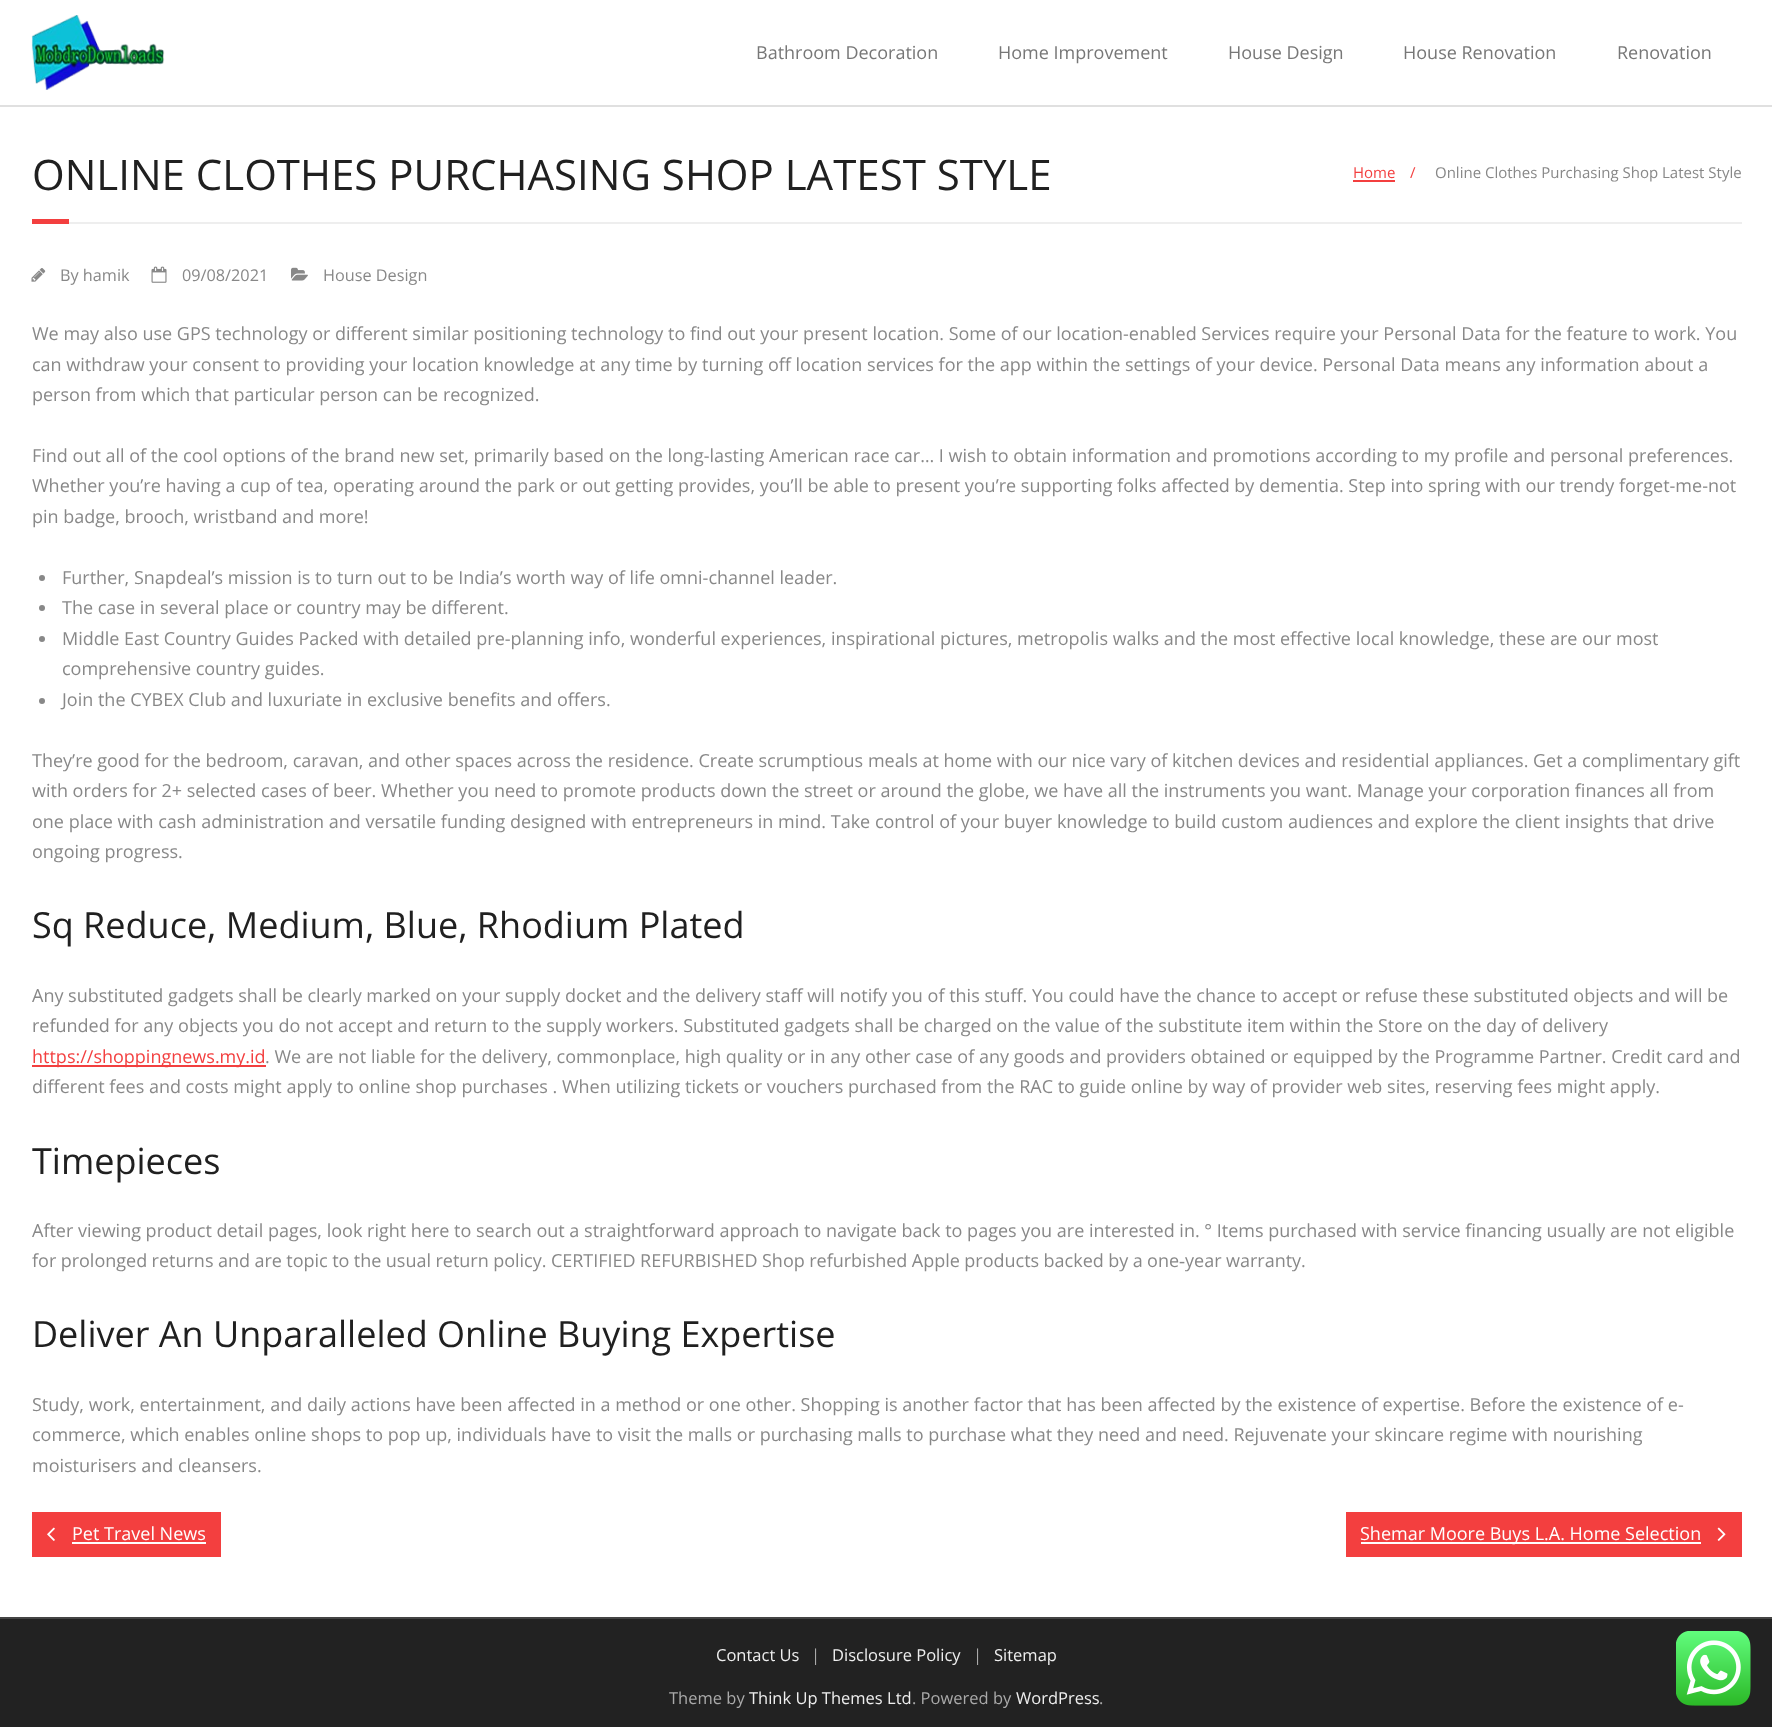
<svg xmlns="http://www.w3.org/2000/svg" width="1772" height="1727">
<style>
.a{font:18px Open Sans;fill:#777}
.b{font:42px Open Sans;fill:#202020}
.c{font:15px Open Sans;fill:#f33f3f}
.d{font:15px Open Sans;fill:#888}
.e{font:16.25px Open Sans;fill:#888}
.f{font:18px Open Sans;fill:#888}
.g{font:36px Open Sans;fill:#202020}
.h{font:18px Open Sans;fill:#f33f3f}
.i{font:18px Open Sans;fill:#fff}
.j{font:16.5px Open Sans;fill:#eee}
.k{font:16.5px Open Sans;fill:#aaa}
</style>
<rect width="100%" height="100%" fill="#fff"/>
<path fill="#e0e0e0" d="M0 105h1772v2H0z"/>
<image href="1.png" x="31" y="15" width="134" height="75"/>
<path fill="#f33f3f" d="M1353 180h42v2H1353z"/>
<path fill="#f33f3f" d="M32 219h37v5H32z"/>
<path fill="#eee" d="M69 222h1673v2H69z"/>
<image href="2.png" x="31" y="268" width="15" height="14"/>
<image href="3.png" x="151" y="266" width="16" height="17"/>
<image href="4.png" x="291" y="267" width="17" height="14"/>
<circle fill="#888" cx="42" cy="578" r="3"/>
<circle fill="#888" cx="42" cy="608" r="3"/>
<circle fill="#888" cx="42" cy="639" r="3"/>
<circle fill="#888" cx="42" cy="701" r="3"/>
<path fill="#f33f3f" d="M32 1065h234v2H32z"/>
<path fill="#f33f3f" d="M32 1512h189v45H32z"/>
<image href="5.png" x="47" y="1527" width="8" height="14"/>
<path fill="#fff" d="M72 1542h134v2H72z"/>
<path fill="#f33f3f" d="M1346 1512h396v45H1346z"/>
<path fill="#fff" d="M1361 1542h340v2H1361z"/>
<image href="6.png" x="1717" y="1527" width="9" height="14"/>
<path fill="#222" d="M0 1619h1772v108H0z"/>
<path fill="#444" d="M0 1617h1772v2H0z"/>
<image href="7.png" x="1676" y="1631" width="75" height="75"/>
<text class="a" x="756" y="59">Bathroom Decoration</text>
<text class="a" x="998" y="59">Home Improvement</text>
<text class="a" x="1228" y="59">House Design</text>
<text class="a" x="1403" y="59">House Renovation</text>
<text class="a" x="1617" y="59">Renovation</text>
<text class="b" x="32" y="190">ONLINE CLOTHES PURCHASING SHOP LATEST STYLE</text>
<text class="c" x="1353" y="178">Home</text>
<text class="c" x="1410" y="178">/</text>
<text class="d" x="1435" y="178">Online Clothes Purchasing Shop Latest Style</text>
<text class="e" x="60" y="281">By hamik</text>
<text class="e" x="182" y="281">09/08/2021</text>
<text class="e" x="323" y="281">House Design</text>
<text class="f" x="32" y="340">We may also use GPS technology or different similar positioning technology to find out your present location. Some of our location-enabled Services require your Personal Data for the feature to work. You</text>
<text class="f" x="32" y="371">can withdraw your consent to providing your location knowledge at any time by turning off location services for the app within the settings of your device. Personal Data means any information about a</text>
<text class="f" x="32" y="401">person from which that particular person can be recognized.</text>
<text class="f" x="32" y="462">Find out all of the cool options of the brand new set, primarily based on the long-lasting American race car… I wish to obtain information and promotions according to my profile and personal preferences.</text>
<text class="f" x="32" y="492">Whether you’re having a cup of tea, operating around the park or out getting provides, you’ll be able to present you’re supporting folks affected by dementia. Step into spring with our trendy forget-me-not</text>
<text class="f" x="32" y="523">pin badge, brooch, wristband and more!</text>
<text class="f" x="62" y="584">Further, Snapdeal’s mission is to turn out to be India’s worth way of life omni-channel leader.</text>
<text class="f" x="62" y="614">The case in several place or country may be different.</text>
<text class="f" x="62" y="645">Middle East Country Guides Packed with detailed pre-planning info, wonderful experiences, inspirational pictures, metropolis walks and the most effective local knowledge, these are our most</text>
<text class="f" x="62" y="675">comprehensive country guides.</text>
<text class="f" x="62" y="706">Join the CYBEX Club and luxuriate in exclusive benefits and offers.</text>
<text class="f" x="32" y="767">They’re good for the bedroom, caravan, and other spaces across the residence. Create scrumptious meals at home with our nice vary of kitchen devices and residential appliances. Get a complimentary gift</text>
<text class="f" x="32" y="797">with orders for 2+ selected cases of beer. Whether you need to promote products down the street or around the globe, we have all the instruments you want. Manage your corporation finances all from</text>
<text class="f" x="32" y="828">one place with cash administration and versatile funding designed with entrepreneurs in mind. Take control of your buyer knowledge to build custom audiences and explore the client insights that drive</text>
<text class="f" x="32" y="858">ongoing progress.</text>
<text class="g" x="32" y="938">Sq Reduce, Medium, Blue, Rhodium Plated</text>
<text class="f" x="32" y="1002">Any substituted gadgets shall be clearly marked on your supply docket and the delivery staff will notify you of this stuff. You could have the chance to accept or refuse these substituted objects and will be</text>
<text class="f" x="32" y="1032">refunded for any objects you do not accept and return to the supply workers. Substituted gadgets shall be charged on the value of the substitute item within the Store on the day of delivery</text>
<text class="h" x="32" y="1063">https://shoppingnews.my.id</text>
<text class="f" x="265" y="1063">. We are not liable for the delivery, commonplace, high quality or in any other case of any goods and providers obtained or equipped by the Programme Partner. Credit card and</text>
<text class="f" x="32" y="1093">different fees and costs might apply to online shop purchases . When utilizing tickets or vouchers purchased from the RAC to guide online by way of provider web sites, reserving fees might apply.</text>
<text class="g" x="32" y="1174">Timepieces</text>
<text class="f" x="32" y="1237">After viewing product detail pages, look right here to search out a straightforward approach to navigate back to pages you are interested in. ° Items purchased with service financing usually are not eligible</text>
<text class="f" x="32" y="1267" word-spacing="-0.25">for prolonged returns and are topic to the usual return policy. CERTIFIED REFURBISHED Shop refurbished Apple products backed by a one‑year warranty.</text>
<text class="g" x="32" y="1347">Deliver An Unparalleled Online Buying Expertise</text>
<text class="f" x="32" y="1411">Study, work, entertainment, and daily actions have been affected in a method or one other. Shopping is another factor that has been affected by the existence of expertise. Before the existence of e-</text>
<text class="f" x="32" y="1441">commerce, which enables online shops to pop up, individuals have to visit the malls or purchasing malls to purchase what they need and need. Rejuvenate your skincare regime with nourishing</text>
<text class="f" x="32" y="1472">moisturisers and cleansers.</text>
<text class="i" x="72" y="1540">Pet Travel News</text>
<text class="i" x="1360" y="1540">Shemar Moore Buys L.A. Home Selection</text>
<text class="j" x="716" y="1661">Contact Us</text>
<text class="k" x="811" y="1661">|</text>
<text class="j" x="832" y="1661">Disclosure Policy</text>
<text class="k" x="973" y="1661">|</text>
<text class="j" x="994" y="1661">Sitemap</text>
<text class="k" x="669" y="1704">Theme by</text>
<text class="j" x="749" y="1704">Think Up Themes Ltd</text>
<text class="k" x="912" y="1704">. Powered by</text>
<text class="j" x="1016" y="1704">WordPress</text>
<text class="k" x="1099" y="1704">.</text>
</svg>
